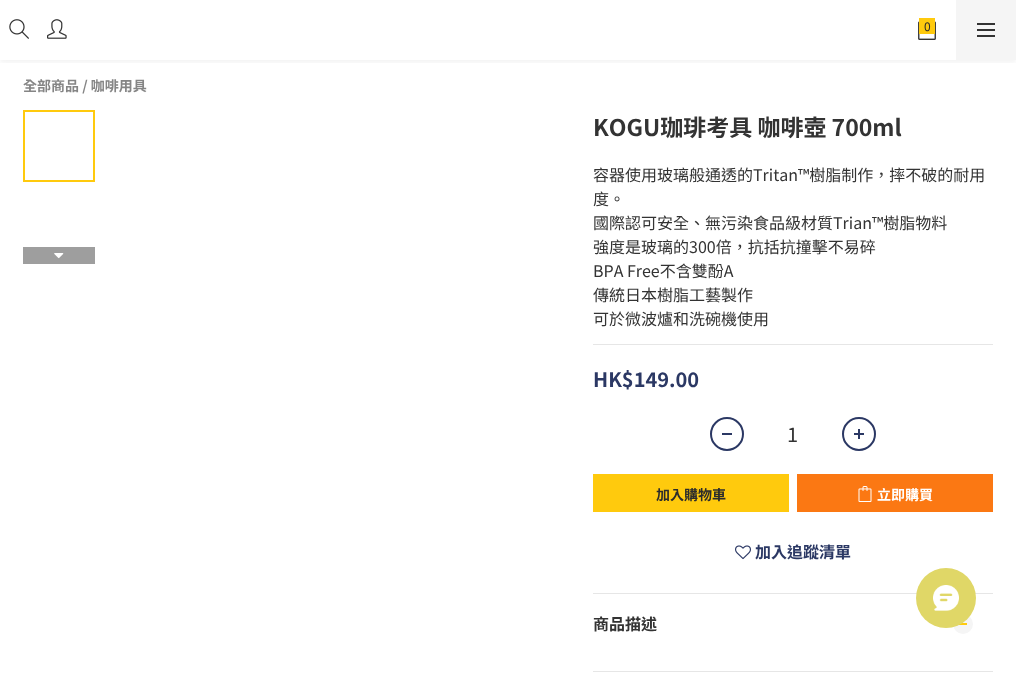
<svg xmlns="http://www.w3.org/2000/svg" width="1016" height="684">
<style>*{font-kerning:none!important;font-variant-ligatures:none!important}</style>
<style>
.a{font:12px Noto Sans TC;fill:#2c2c2c}
.b{font:bold 14px Noto Sans TC;fill:#858585}
.c{font:bold 23px Noto Sans TC;fill:#333}
.d{font:16px Noto Sans TC;fill:#333}
.e{font:bold 20px Noto Sans TC;fill:#2b3864}
.f{font:20px Noto Sans TC;fill:#333}
.g{font:bold 14px Noto Sans TC;fill:#2c2c2c}
.h{font:bold 14px Noto Sans TC;fill:#fff}
.i{font:bold 16px Noto Sans TC;fill:#2b3864}
.j{font:bold 16px Noto Sans TC;fill:#333}
</style>
<defs>
<clipPath id="clip1"><path d="M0 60h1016v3H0z"/></clipPath>
</defs>
<rect width="100%" height="100%" fill="#fff"/>
<g clip-path="url(#clip1)">
<path fill="#0000000f" filter="blur(3px)" d="M0 2h1016v60H0z"/>
</g>
<image href="1.png" x="9" y="19" width="20" height="20"/>
<image href="2.png" x="47" y="19" width="20" height="20"/>
<image href="3.png" x="918" y="21" width="18" height="19"/>
<path fill="#ffca0d" d="M919 18h16v16H919z"/>
<path fill="#f5f5f5" d="M956 0h60v60H956z"/>
<path fill="#333" d="M977 29h18v2H977z"/>
<path fill="#333" d="M977 23h18v2H977z"/>
<path fill="#333" d="M977 35h18v2H977z"/>
<path fill="none" stroke="#ffca0d" stroke-width="2" d="M24 111h70v70H24z"/>
<path fill="#9e9e9e" d="M23 247h72v17H23z"/>
<image href="4.png" x="54" y="253" width="10" height="6"/>
<path fill="#e6e6e6" d="M593 344h400v1H593z"/>
<circle fill="none" stroke="#2b3864" stroke-width="2" cx="727" cy="434" r="16"/>
<path fill="#2b3864" d="M722 433h10v2H722z"/>
<circle fill="none" stroke="#2b3864" stroke-width="2" cx="859" cy="434" r="16"/>
<path fill="#2b3864" d="M854 433h10v2H854z"/>
<path fill="#2b3864" d="M858 429h2v10H858z"/>
<path fill="#ffca0d" d="M593 474h196v38H593z"/>
<path fill="#fb7813" d="M797 474h196v38H797z"/>
<image href="5.png" x="858" y="486" width="14" height="16"/>
<image href="6.png" x="735" y="545" width="16" height="15"/>
<path fill="#e6e6e6" d="M593 593h400v1H593z"/>
<circle fill="#f5f5f5" cx="963" cy="624" r="10"/>
<path fill="#ffca0d" d="M959 623h8v2H959z"/>
<path fill="#e6e6e6" d="M593 671h400v1H593z"/>
<circle fill="#e0d767" cx="946" cy="598" r="30"/>
<image href="7.png" x="933" y="585" width="26" height="26"/>
<text class="a" x="924" y="31">0</text>
<text class="b" x="23" y="91">全部商品 / 咖啡用具</text>
<text class="c" x="593" y="136">KOGU珈琲考具 咖啡壺 700ml</text>
<text class="d" x="593" y="181">容器使用玻璃般通透的Tritan™樹脂制作，摔不破的耐用</text>
<text class="d" x="593" y="205">度。</text>
<text class="d" x="593" y="229">國際認可安全、無污染食品級材質Trian™樹脂物料</text>
<text class="d" x="593" y="253">強度是玻璃的300倍，抗括抗撞擊不易碎</text>
<text class="d" x="593" y="277">BPA Free不含雙酚A</text>
<text class="d" x="593" y="301">傳統日本樹脂工藝製作</text>
<text class="d" x="593" y="325">可於微波爐和洗碗機使用</text>
<text class="e" x="593" y="387">HK$149.00</text>
<text class="f" x="787" y="442">1</text>
<text class="g" x="656" y="500">加入購物車</text>
<text class="h" x="877" y="500">立即購買</text>
<text class="i" x="755" y="558">加入追蹤清單</text>
<text class="j" x="593" y="630">商品描述</text>
</svg>
